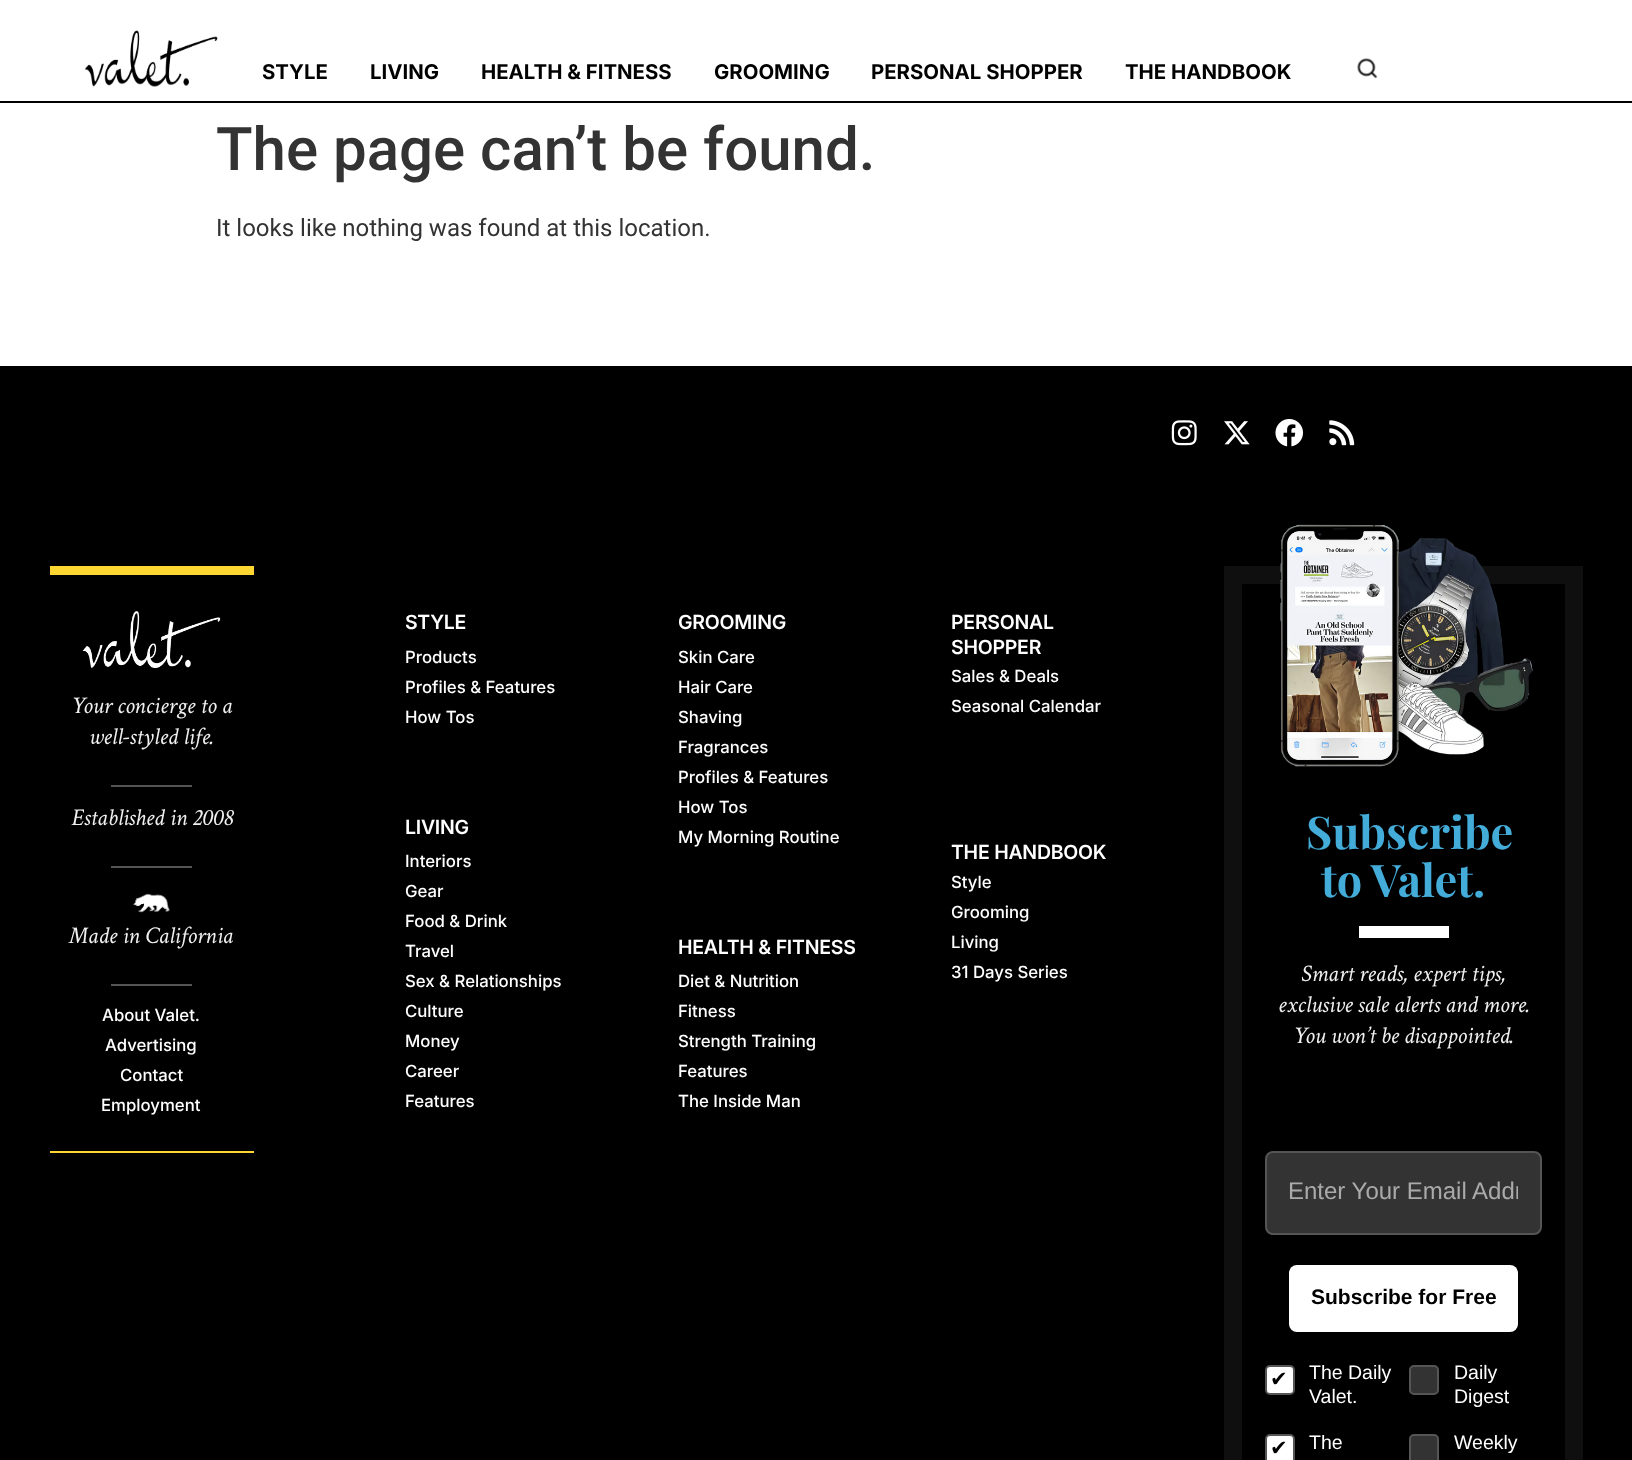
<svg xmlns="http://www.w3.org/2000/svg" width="1632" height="1460">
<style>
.a{font:bold 20.4px Inter;fill:#000}
.b{font:500 60px Roboto;fill:#333}
.c{font:24px Roboto;fill:#333}
.d{font:italic 24px Crimson Text;letter-spacing:-0.1px;fill:#f0f0f0}
.e{font:500 16.75px Inter;fill:#fff}
.f{font:600 19.5px Inter;letter-spacing:-0.25px;fill:#fff}
.g{font:bold 45px Playfair Display;fill:#43acd9}
.h{font:24px Liberation Sans;fill:#aaa}
.i{font:bold 21px Liberation Sans;fill:#000}
.j{font:21px DejaVu Sans;fill:#000}
.k{font:19.5px Liberation Sans;fill:#fff}
</style>
<defs>
<clipPath id="clip1"><path d="M1289 1179h229v27H1289z"/></clipPath>
</defs>
<rect width="100%" height="100%" fill="#fff"/>
<path fill="#000" d="M0 101h1632v2H0z"/>
<image href="1.png" x="85" y="30" width="133" height="57"/>
<image href="2.png" x="1357" y="58" width="21" height="21"/>
<path fill="#000" d="M0 366h1632v1094H0z"/>
<image href="3.png" x="1171" y="420" width="26" height="26"/>
<image href="4.png" x="1224" y="421" width="26" height="24"/>
<image href="5.png" x="1275" y="419" width="29" height="28"/>
<image href="6.png" x="1329" y="420" width="26" height="26"/>
<path fill="#ffd733" d="M50 566h204v9H50z"/>
<image href="7.png" x="82" y="611" width="139" height="58"/>
<path fill="#545454" d="M111 785h81v2H111z"/>
<path fill="#545454" d="M111 866h81v2H111z"/>
<image href="8.png" x="133" y="893" width="37" height="20"/>
<path fill="#545454" d="M111 984h81v2H111z"/>
<path fill="#ffd733" d="M50 1151h204v2H50z"/>
<path fill="#0f0f0f" d="M1224 566h359v894H1224z"/>
<path fill="#000" d="M1242 584h323v876H1242z"/>
<image href="9.png" x="1280" y="524" width="253" height="243"/>
<path fill="#fff" d="M1359 926h90v12H1359z"/>
<rect fill="#333" stroke="#555" stroke-width="2" x="1266" y="1152" width="275" height="82" rx="7"/>
<rect fill="#fff" x="1289" y="1265" width="229" height="67" rx="8"/>
<rect fill="#fff" stroke="#555" stroke-width="2" x="1266" y="1366" width="28" height="28" rx="4"/>
<rect fill="#333" stroke="#555" stroke-width="2" x="1410" y="1366" width="28" height="28" rx="4"/>
<rect fill="#fff" stroke="#555" stroke-width="2" x="1266" y="1435" width="28" height="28" rx="4"/>
<rect fill="#333" stroke="#555" stroke-width="2" x="1410" y="1435" width="28" height="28" rx="4"/>
<text class="a" x="262" y="79">STYLE</text>
<text class="a" x="370" y="79">LIVING</text>
<text class="a" x="481" y="79">HEALTH &amp; FITNESS</text>
<text class="a" x="714" y="79">GROOMING</text>
<text class="a" x="871" y="79">PERSONAL SHOPPER</text>
<text class="a" x="1125" y="79">THE HANDBOOK</text>
<text class="b" x="216" y="170">The page can’t be found.</text>
<text class="c" x="216" y="236">It looks like nothing was found at this location.</text>
<text class="d" x="71" y="713">Your concierge to a</text>
<text class="d" x="89" y="744">well-styled life.</text>
<text class="d" x="71" y="825">Established in 2008</text>
<text class="d" x="69" y="943">Made in California</text>
<text class="e" x="102" y="1021">About Valet.</text>
<text class="e" x="105" y="1051">Advertising</text>
<text class="e" x="120" y="1081">Contact</text>
<text class="e" x="101" y="1111">Employment</text>
<text class="f" x="405" y="629">STYLE</text>
<text class="e" x="405" y="663">Products</text>
<text class="e" x="405" y="693">Profiles &amp; Features</text>
<text class="e" x="405" y="723">How Tos</text>
<text class="f" x="405" y="834">LIVING</text>
<text class="e" x="405" y="867">Interiors</text>
<text class="e" x="405" y="897">Gear</text>
<text class="e" x="405" y="927">Food &amp; Drink</text>
<text class="e" x="405" y="957">Travel</text>
<text class="e" x="405" y="987">Sex &amp; Relationships</text>
<text class="e" x="405" y="1017">Culture</text>
<text class="e" x="405" y="1047">Money</text>
<text class="e" x="405" y="1077">Career</text>
<text class="e" x="405" y="1107">Features</text>
<text class="f" x="678" y="629">GROOMING</text>
<text class="e" x="678" y="663">Skin Care</text>
<text class="e" x="678" y="693">Hair Care</text>
<text class="e" x="678" y="723">Shaving</text>
<text class="e" x="678" y="753">Fragrances</text>
<text class="e" x="678" y="783">Profiles &amp; Features</text>
<text class="e" x="678" y="813">How Tos</text>
<text class="e" x="678" y="843">My Morning Routine</text>
<text class="f" x="678" y="954">HEALTH &amp; FITNESS</text>
<text class="e" x="678" y="987">Diet &amp; Nutrition</text>
<text class="e" x="678" y="1017">Fitness</text>
<text class="e" x="678" y="1047">Strength Training</text>
<text class="e" x="678" y="1077">Features</text>
<text class="e" x="678" y="1107">The Inside Man</text>
<text class="f" x="951" y="629">PERSONAL</text>
<text class="f" x="951" y="654">SHOPPER</text>
<text class="e" x="951" y="682">Sales &amp; Deals</text>
<text class="e" x="951" y="712">Seasonal Calendar</text>
<text class="f" x="951" y="859">THE HANDBOOK</text>
<text class="e" x="951" y="888">Style</text>
<text class="e" x="951" y="918">Grooming</text>
<text class="e" x="951" y="948">Living</text>
<text class="e" x="951" y="978">31 Days Series</text>
<text class="g" x="1306" y="849">Subscribe</text>
<text class="g" x="1321" y="897">to Valet.</text>
<text class="d" x="1301" y="981">Smart reads, expert tips,</text>
<text class="d" x="1278" y="1012">exclusive sale alerts and more.</text>
<text class="d" x="1293" y="1043">You won’t be disappointed.</text>
<g clip-path="url(#clip1)">
<text class="h" x="1288" y="1199">Enter Your Email Addr</text>
</g>
<text class="i" x="1311" y="1304">Subscribe for Free</text>
<text class="j" x="1270" y="1386">✔</text>
<text class="k" x="1309" y="1379">The Daily</text>
<text class="k" x="1309" y="1403">Valet.</text>
<text class="k" x="1454" y="1379">Daily</text>
<text class="k" x="1454" y="1403">Digest</text>
<text class="j" x="1270" y="1455">✔</text>
<text class="k" x="1309" y="1449">The</text>
<text class="k" x="1454" y="1449">Weekly</text>
</svg>
